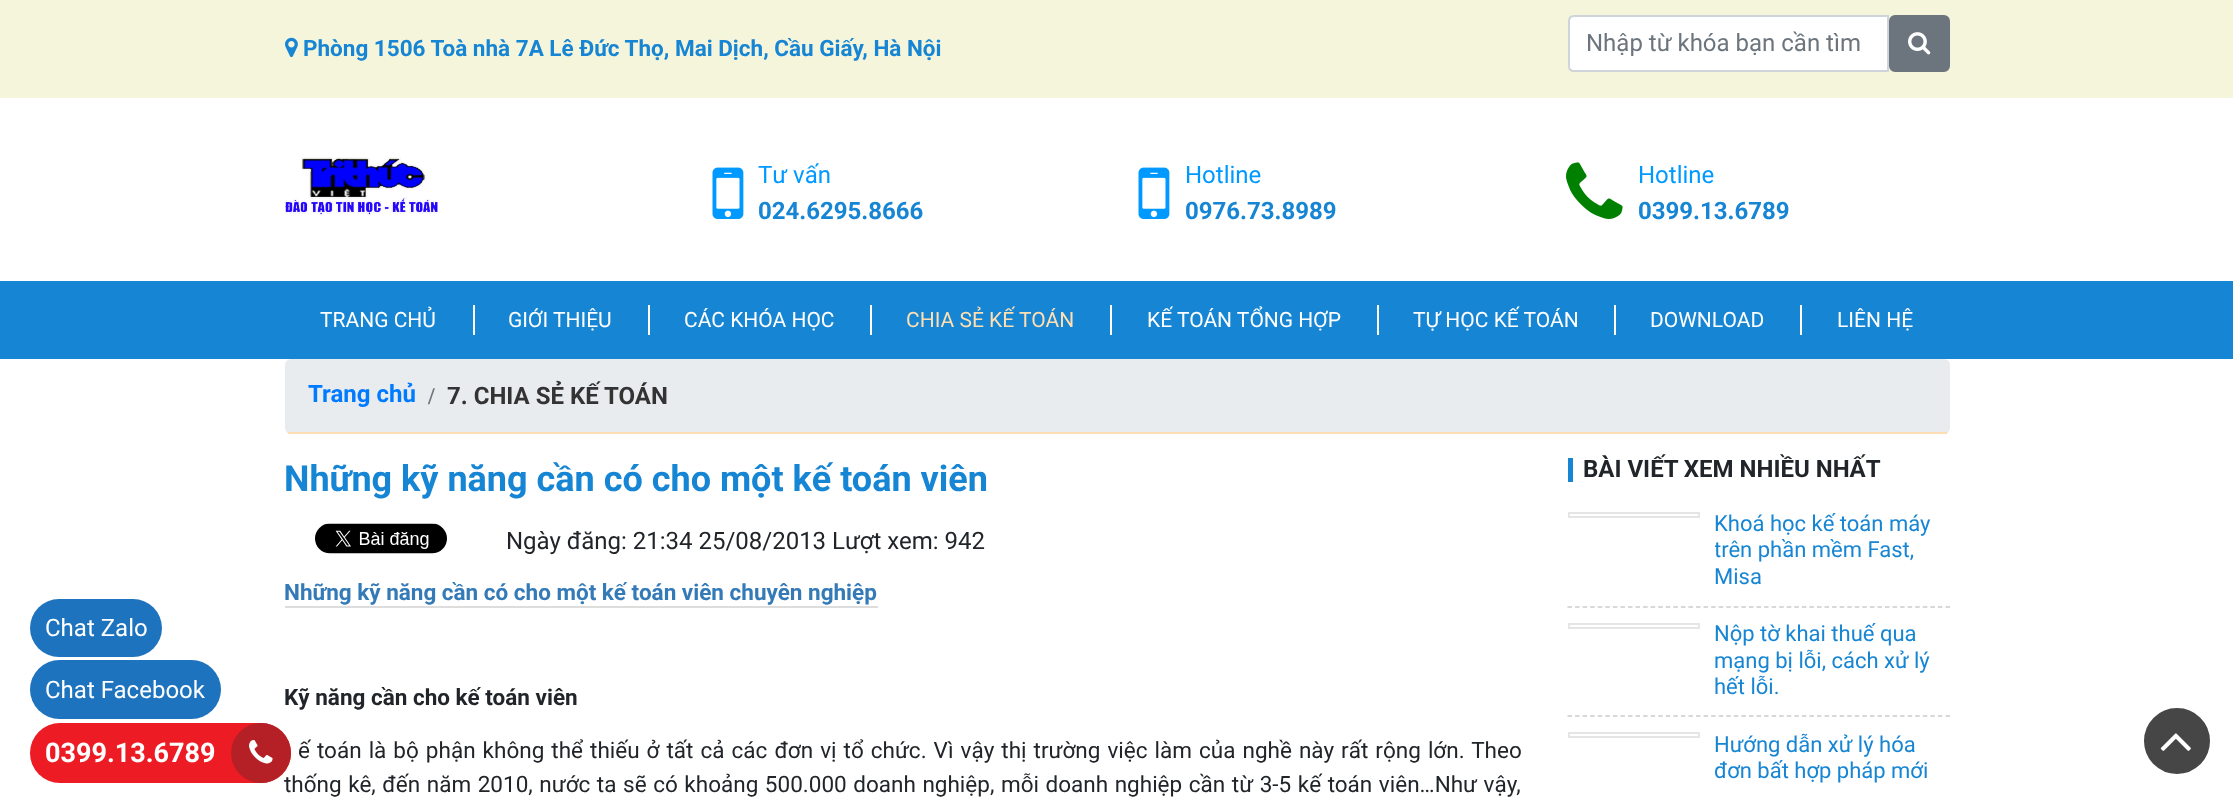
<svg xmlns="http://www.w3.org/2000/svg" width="2233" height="797">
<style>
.a{font:24px Roboto;fill:#fff}
.b{font:bold 22.5px Roboto;fill:#1685d3}
.c{font:24px Roboto;fill:#6c757d}
.d{font:24px Roboto;fill:#09f}
.e{font:bold 24px Roboto;fill:#1685d3}
.f{font:21px Roboto;fill:#fff}
.g{font:21px Roboto;fill:#ffdfb2}
.h{font:bold 24px Roboto;fill:#007bff}
.i{font:bold 24px Liberation Serif;fill:#6c757d}
.j{font:bold 24px Roboto;fill:#333}
.k{font:bold 36px Roboto;fill:#1685d3}
.l{font:24px Roboto;fill:#212529}
.m{font:bold 22.5px Roboto;fill:#337ab7}
.n{font:bold 22.5px Roboto;fill:#212529}
.o{font:22.5px Roboto;fill:#212529}
.p{font:bold 24px Roboto;fill:#212529}
.q{font:22px Roboto;fill:#1685d3}
.r{font:bold 27px Roboto;fill:#fff}
</style>
<defs>
<clipPath id="clip1"><path d="M1715 512h235v79H1715z"/></clipPath>
<clipPath id="clip2"><path d="M1715 732h235v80H1715z"/></clipPath>
</defs>
<rect width="100%" height="100%" fill="#fff"/>
<rect fill="#1e73be" x="30" y="599" width="132" height="58" rx="29"/>
<path fill="#f5f5dc" d="M0 0h2233v98H0z"/>
<image href="1.png" x="285" y="37" width="13" height="21"/>
<path fill="#fff" stroke="#ced4da" stroke-width="2" d="M1574 16h314v55h-314c-3 0-5-2-5-5v-45c0-3 2-5 5-5z"/>
<rect fill="#6c757d" stroke="#6c757d" stroke-width="2" x="1890" y="16" width="59" height="55" rx="5"/>
<image href="2.png" x="1908" y="32" width="23" height="23"/>
<image href="3.png" x="285" y="157" width="153" height="59"/>
<image href="4.png" x="712" y="167" width="32" height="52"/>
<image href="4.png" x="1138" y="167" width="32" height="52"/>
<image href="5.png" x="1566" y="162" width="57" height="57"/>
<path fill="#1685d3" d="M0 281h2233v78H0z"/>
<path fill="#fff" d="M473 305h2v30H473z"/>
<path fill="#fff" d="M648 305h2v30H648z"/>
<path fill="#fff" d="M870 305h2v30H870z"/>
<path fill="#fff" d="M1110 305h2v30H1110z"/>
<path fill="#fff" d="M1377 305h2v30H1377z"/>
<path fill="#fff" d="M1614 305h2v30H1614z"/>
<path fill="#fff" d="M1800 305h2v30H1800z"/>
<rect fill="#e9ecef" x="285" y="359" width="1665" height="75" rx="6"/>
<path fill="#ffdfb2" d="M288 432h1659v2H288z"/>
<image href="6.png" x="315" y="523" width="132" height="31"/>
<path fill="#ddd" d="M285 606h593v2H285z"/>
<path fill="#1685d3" d="M1568 458h5v24H1568z"/>
<path fill="none" stroke="#e5e5e5" stroke-width="2" d="M1569 513h130v4H1569z"/>
<path fill="none" stroke="#ccc" stroke-width="1.5" stroke-dasharray="4.5 3.06" d="M1567.5 607h382.5"/>
<path fill="none" stroke="#e5e5e5" stroke-width="2" d="M1569 624h130v4H1569z"/>
<path fill="none" stroke="#ccc" stroke-width="1.5" stroke-dasharray="4.5 3.06" d="M1567.5 716h382.5"/>
<path fill="none" stroke="#e5e5e5" stroke-width="2" d="M1569 733h130v4H1569z"/>
<circle fill="#464646" stroke="#464646" stroke-width="5" cx="2177" cy="741" r="30.5"/>
<image href="7.png" x="2160" y="733" width="31" height="18"/>
<rect fill="#1e73be" x="30" y="660" width="191" height="59" rx="29.5"/>
<text class="a" x="45" y="636">Chat Zalo</text>
<text class="b" x="303" y="56">Phòng 1506 Toà nhà 7A Lê Đức Thọ, Mai Dịch, Cầu Giấy, Hà Nội</text>
<text class="c" x="1586" y="51">Nhập từ khóa bạn cần tìm</text>
<text class="d" x="758" y="183">Tư vấn</text>
<text class="e" x="758" y="219">024.6295.8666</text>
<text class="d" x="1185" y="183">Hotline</text>
<text class="e" x="1185" y="219">0976.73.8989</text>
<text class="d" x="1638" y="183">Hotline</text>
<text class="e" x="1638" y="219">0399.13.6789</text>
<text class="f" x="320" y="327">TRANG CHỦ</text>
<text class="f" x="508" y="327">GIỚI THIỆU</text>
<text class="f" x="684" y="327">CÁC KHÓA HỌC</text>
<text class="g" x="906" y="327">CHIA SẺ KẾ TOÁN</text>
<text class="f" x="1147" y="327">KẾ TOÁN TỔNG HỢP</text>
<text class="f" x="1413" y="327">TỰ HỌC KẾ TOÁN</text>
<text class="f" x="1650" y="327">DOWNLOAD</text>
<text class="f" x="1837" y="327">LIÊN HỆ</text>
<text class="h" x="308" y="402">Trang chủ</text>
<text class="i" x="428" y="404">/</text>
<text class="j" x="447" y="404">7. CHIA SẺ KẾ TOÁN</text>
<text class="k" x="284" y="491">Những kỹ năng cần có cho một kế toán viên</text>
<text class="l" x="506" y="549">Ngày đăng: 21:34 25/08/2013 Lượt xem: 942</text>
<text class="m" x="284" y="600">Những kỹ năng cần có cho một kế toán viên chuyên nghiệp</text>
<text class="n" x="284" y="705">Kỹ năng cần cho kế toán viên</text>
<text class="o" x="298" y="758" word-spacing="1.45">ế toán là bộ phận không thể thiếu ở tất cả các đơn vị tổ chức. Vì vậy thị trường việc làm của nghề này rất rộng lớn. Theo</text>
<text class="o" x="284" y="792" word-spacing="1">thống kê, đến năm 2010, nước ta sẽ có khoảng 500.000 doanh nghiệp, mỗi doanh nghiệp cần từ 3-5 kế toán viên…Như vậy,</text>
<text class="p" x="1583" y="477">BÀI VIẾT XEM NHIỀU NHẤT</text>
<text class="q" x="1714" y="531">Khoá học kế toán máy</text>
<g clip-path="url(#clip1)">
<text class="q" x="1714" y="557">trên phần mềm Fast,</text>
</g>
<text class="q" x="1714" y="584">Misa</text>
<text class="q" x="1714" y="641">Nộp tờ khai thuế qua</text>
<text class="q" x="1714" y="668">mạng bị lỗi, cách xử lý</text>
<text class="q" x="1714" y="694">hết lỗi.</text>
<text class="q" x="1714" y="752">Hướng dẫn xử lý hóa</text>
<g clip-path="url(#clip2)">
<text class="q" x="1714" y="778">đơn bất hợp pháp mới</text>
</g>
<text class="a" x="45" y="698">Chat Facebook</text>
<rect fill="#ed1c24" x="30" y="723" width="261" height="60" rx="30"/>
<text class="r" x="45" y="762">0399.13.6789</text>
<circle fill="#b52026" cx="261" cy="753" r="30"/>
<image href="8.png" x="249" y="740" width="24" height="24"/>
</svg>
